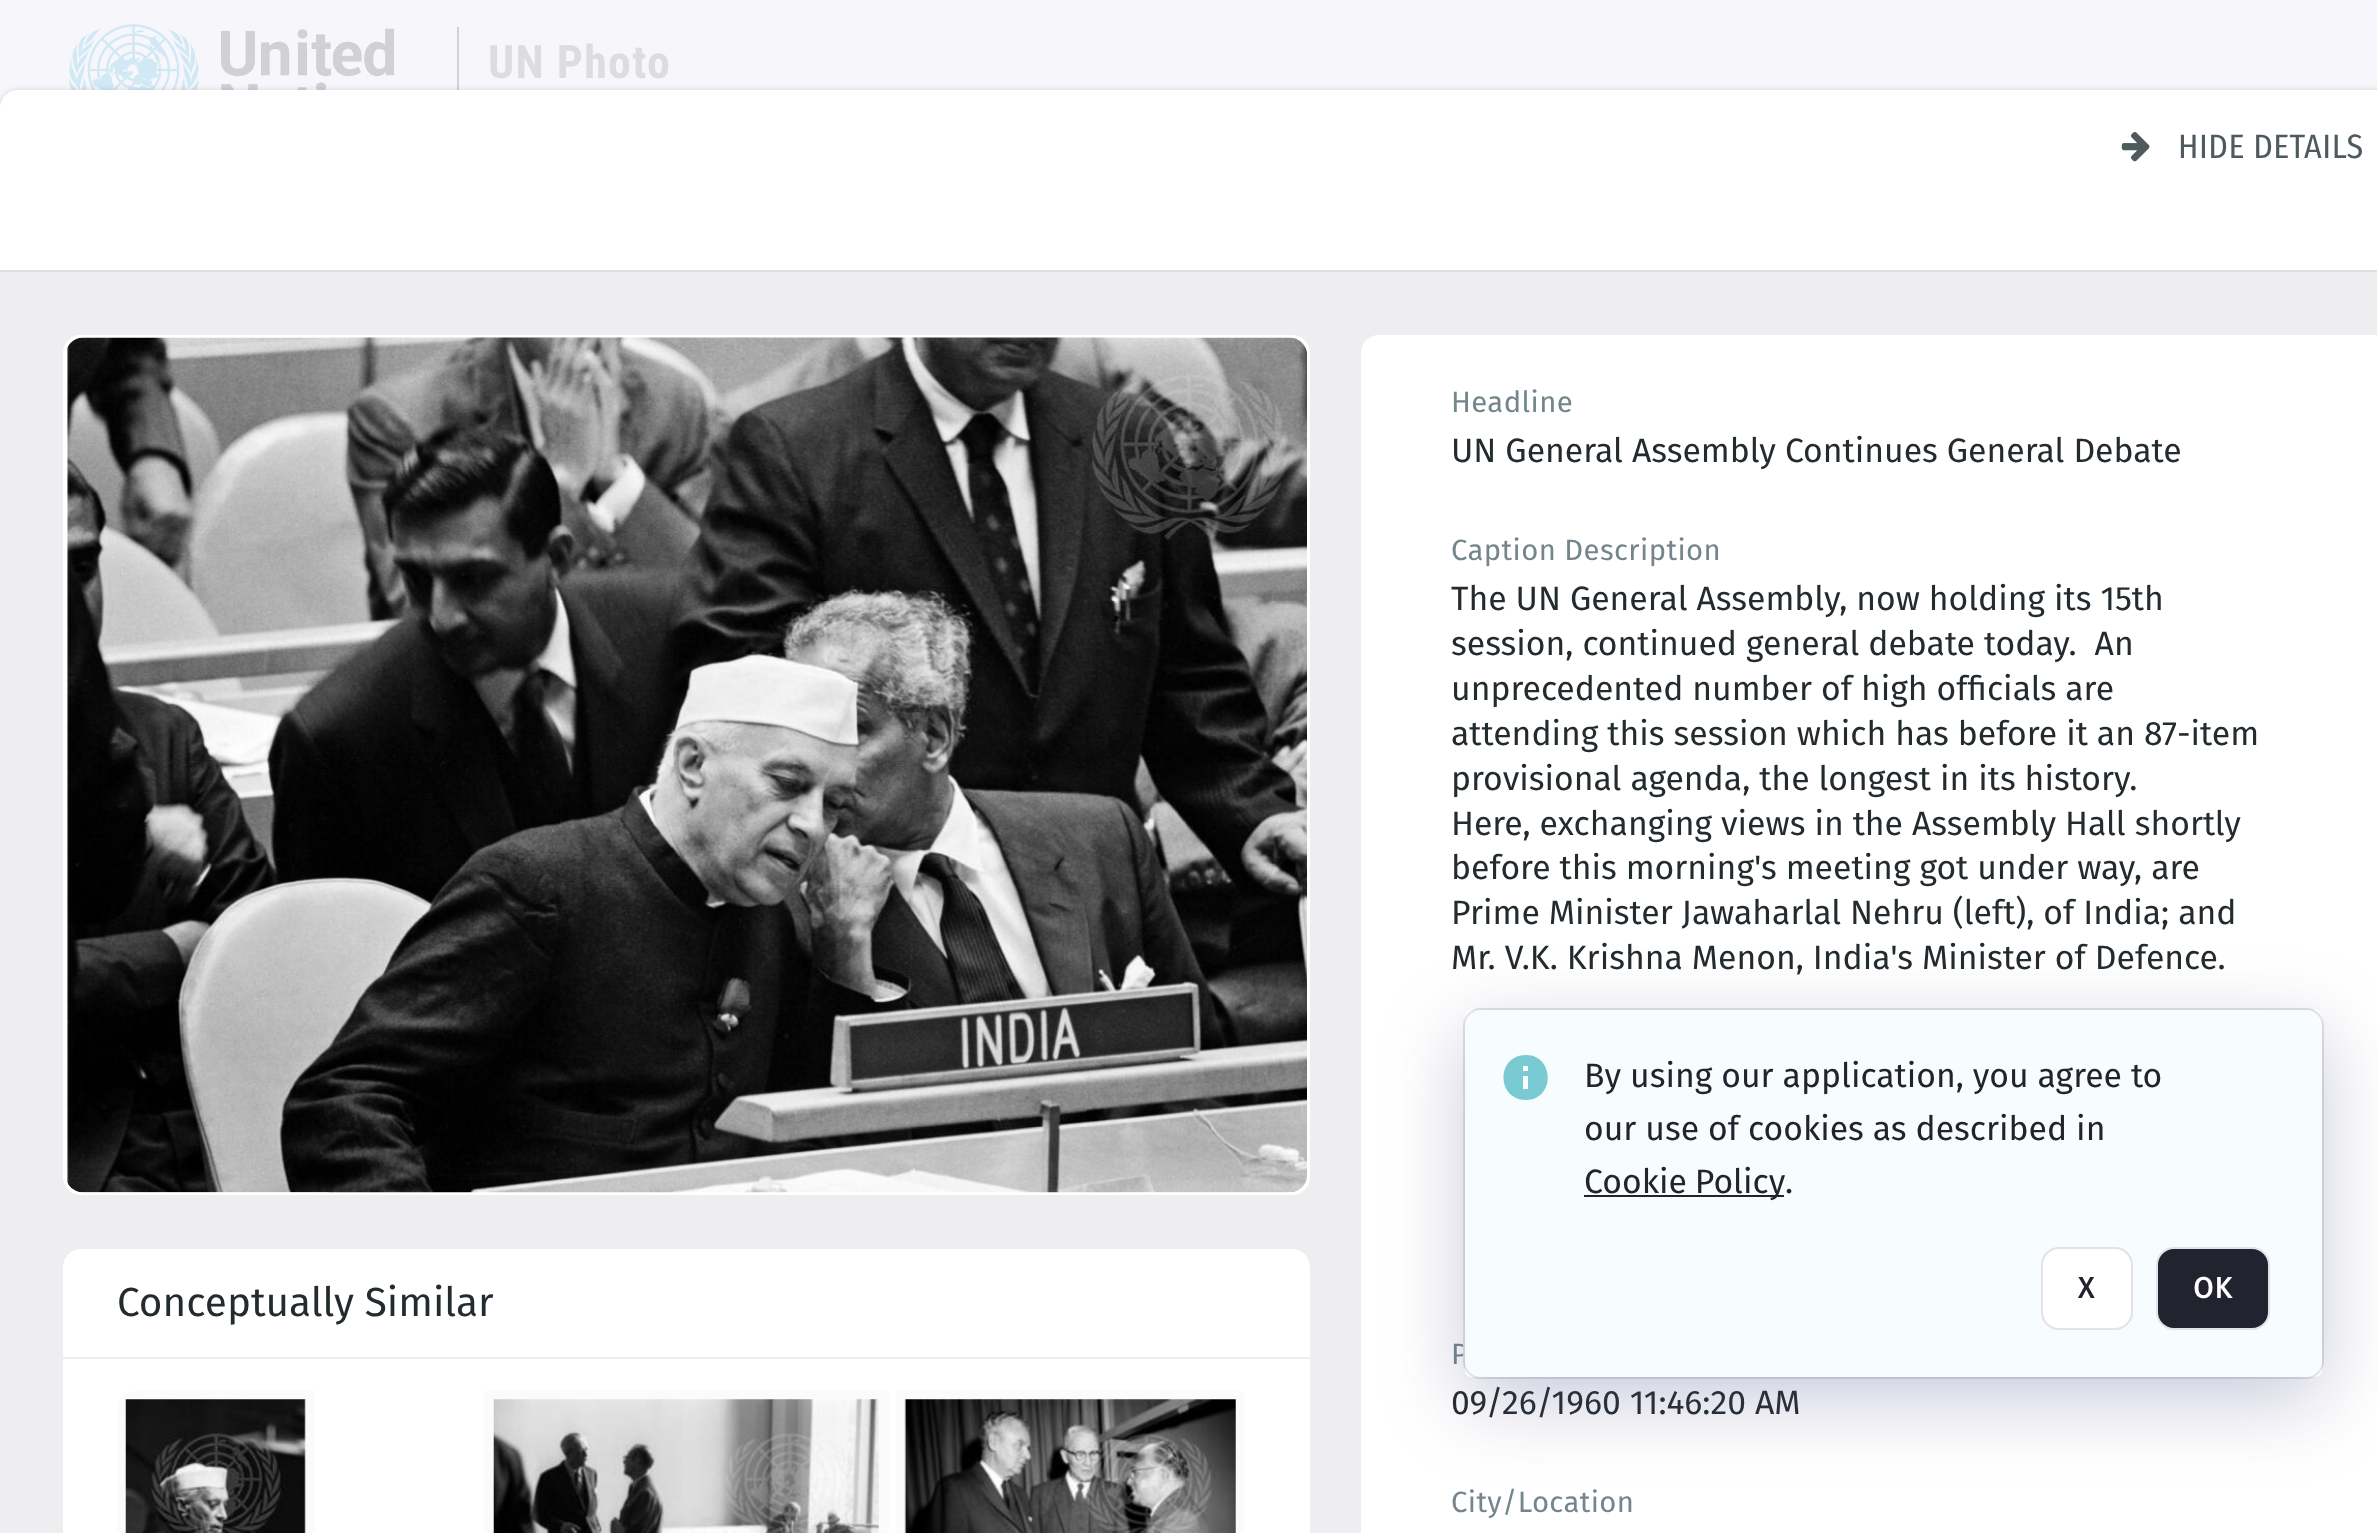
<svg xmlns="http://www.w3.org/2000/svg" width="2377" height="1533">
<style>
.a{font:bold 46px Roboto Condensed;letter-spacing:1.25px;fill:#dddde0}
.b{font:33.75px Fira Sans Condensed;letter-spacing:0.5px;fill:#4f5a5f}
.c{font:40.5px Fira Sans;fill:#242b2e}
.d{font:29.25px Fira Sans;letter-spacing:0.4px;fill:#74858c}
.e{font:33.75px Fira Sans;fill:#242b2e}
.f{font:33.75px Fira Sans;fill:#23232f}
.g{font:bold 29.25px Fira Sans;letter-spacing:1px;fill:#23232f}
.h{font:bold 29.25px Fira Sans;letter-spacing:1px;fill:#fff}
</style>
<defs>
<clipPath id="clip1"><rect x="117" y="1391" width="1139" height="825" rx="18"/></clipPath>
<clipPath id="clip2"><path d="M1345 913h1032v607h-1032zm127 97h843c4 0 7 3 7 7v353c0 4-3 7-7 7h-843c-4 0-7-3-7-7v-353c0-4 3-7 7-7z" clip-rule="evenodd"/></clipPath>
</defs>
<rect width="100%" height="100%" fill="#f7f7fb"/>
<image href="1.png" x="69" y="24" width="325" height="66"/>
<path fill="#d1d1d5" d="M457 27h2v63H457z"/>
<rect fill="#0000000f" filter="blur(2px)" y="90" width="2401" height="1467" rx="18"/>
<rect fill="#00000014" filter="blur(3.5px)" y="90" width="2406" height="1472" rx="18"/>
<path fill="#fff" d="M18 90h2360v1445h-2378v-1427c0-10 8-18 18-18z"/>
<image href="2.png" x="2121" y="132" width="29" height="30"/>
<path fill="#dfe0e4" d="M0 270h2377v2H0z"/>
<path fill="#eeeef1" d="M0 272h2377v1261H0z"/>
<rect fill="#fff" x="63" y="335" width="1247" height="860" rx="18"/>
<image href="3.png" x="67" y="337" width="1240" height="856"/>
<path fill="#fff" d="M81 1249h1211c10 0 18 8 18 18v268h-1247v-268c0-10 8-18 18-18z"/>
<path fill="#fcfafc" d="M135 1391h180v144h-198v-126c0-10 8-18 18-18z"/>
<image href="4.png" x="125" y="1399" width="181" height="134"/>
<path fill="#fcfafc" d="M484 1391h405v142H484z"/>
<image href="5.png" x="493" y="1399" width="386" height="134"/>
<g clip-path="url(#clip1)">
<path fill="#fcfafc" d="M896 1391h348v142H896z"/>
</g>
<image href="6.png" x="904" y="1399" width="332" height="134"/>
<path fill="#eeeef1" d="M63 1357h1247v2H63z"/>
<path fill="#fff" d="M1379 335h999v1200h-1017v-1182c0-10 8-18 18-18z"/>
<text class="a" x="488" y="78">UN Photo</text>
<text class="b" x="2178" y="158">HIDE DETAILS</text>
<text class="c" x="117" y="1316">Conceptually Similar</text>
<text class="d" x="1451" y="412">Headline</text>
<text class="e" x="1451" y="462">UN General Assembly Continues General Debate</text>
<text class="d" x="1451" y="560">Caption Description</text>
<text class="e" x="1451" y="610">The UN General Assembly, now holding its 15th</text>
<text class="e" xml:space="preserve" x="1451" y="655">session, continued general debate today.  An</text>
<text class="e" x="1451" y="700">unprecedented number of high officials are</text>
<text class="e" x="1451" y="745">attending this session which has before it an 87-item</text>
<text class="e" x="1451" y="790">provisional agenda, the longest in its history.</text>
<text class="e" x="1451" y="835">Here, exchanging views in the Assembly Hall shortly</text>
<text class="e" x="1451" y="879">before this morning's meeting got under way, are</text>
<text class="e" x="1451" y="924">Prime Minister Jawaharlal Nehru (left), of India; and</text>
<text class="e" x="1451" y="969">Mr. V.K. Krishna Menon, India's Minister of Defence.</text>
<text class="d" x="1451" y="1364">P</text>
<text class="e" x="1451" y="1414">09/26/1960 11:46:20 AM</text>
<text class="d" x="1451" y="1512">City/Location</text>
<rect fill="#f7fdfe" stroke="#e2e2e9" stroke-width="2" x="1464" y="1009" width="859" height="369" rx="17"/>
<g clip-path="url(#clip2)">
<rect fill="#4d4d874d" filter="blur(39.5px)" x="1465" y="1033" width="857" height="367" rx="7"/>
</g>
<path fill="#7acad3" d="M1526 1055c-30 0-30 45 0 45c29 0 29-45 0-45zm2 34h-5v-13h5zm0-18h-5v-5h5z"/>
<text class="f" x="1584" y="1087">By using our application, you agree to</text>
<text class="f" x="1584" y="1140">our use of cookies as described in</text>
<path fill="#23232f" d="M1584 1195h200v2H1584z"/>
<text class="f" x="1584" y="1193" word-spacing="-1">Cookie Policy</text>
<text class="f" x="1785" y="1193">.</text>
<rect fill="#fff" stroke="#e2e2e9" stroke-width="2" x="2042" y="1248" width="90" height="81" rx="17"/>
<text class="g" x="2078" y="1298">X</text>
<rect fill="#23232f" stroke="#e2e2e9" stroke-width="2" x="2157" y="1248" width="112" height="81" rx="17"/>
<text class="h" x="2193" y="1298">OK</text>
</svg>
